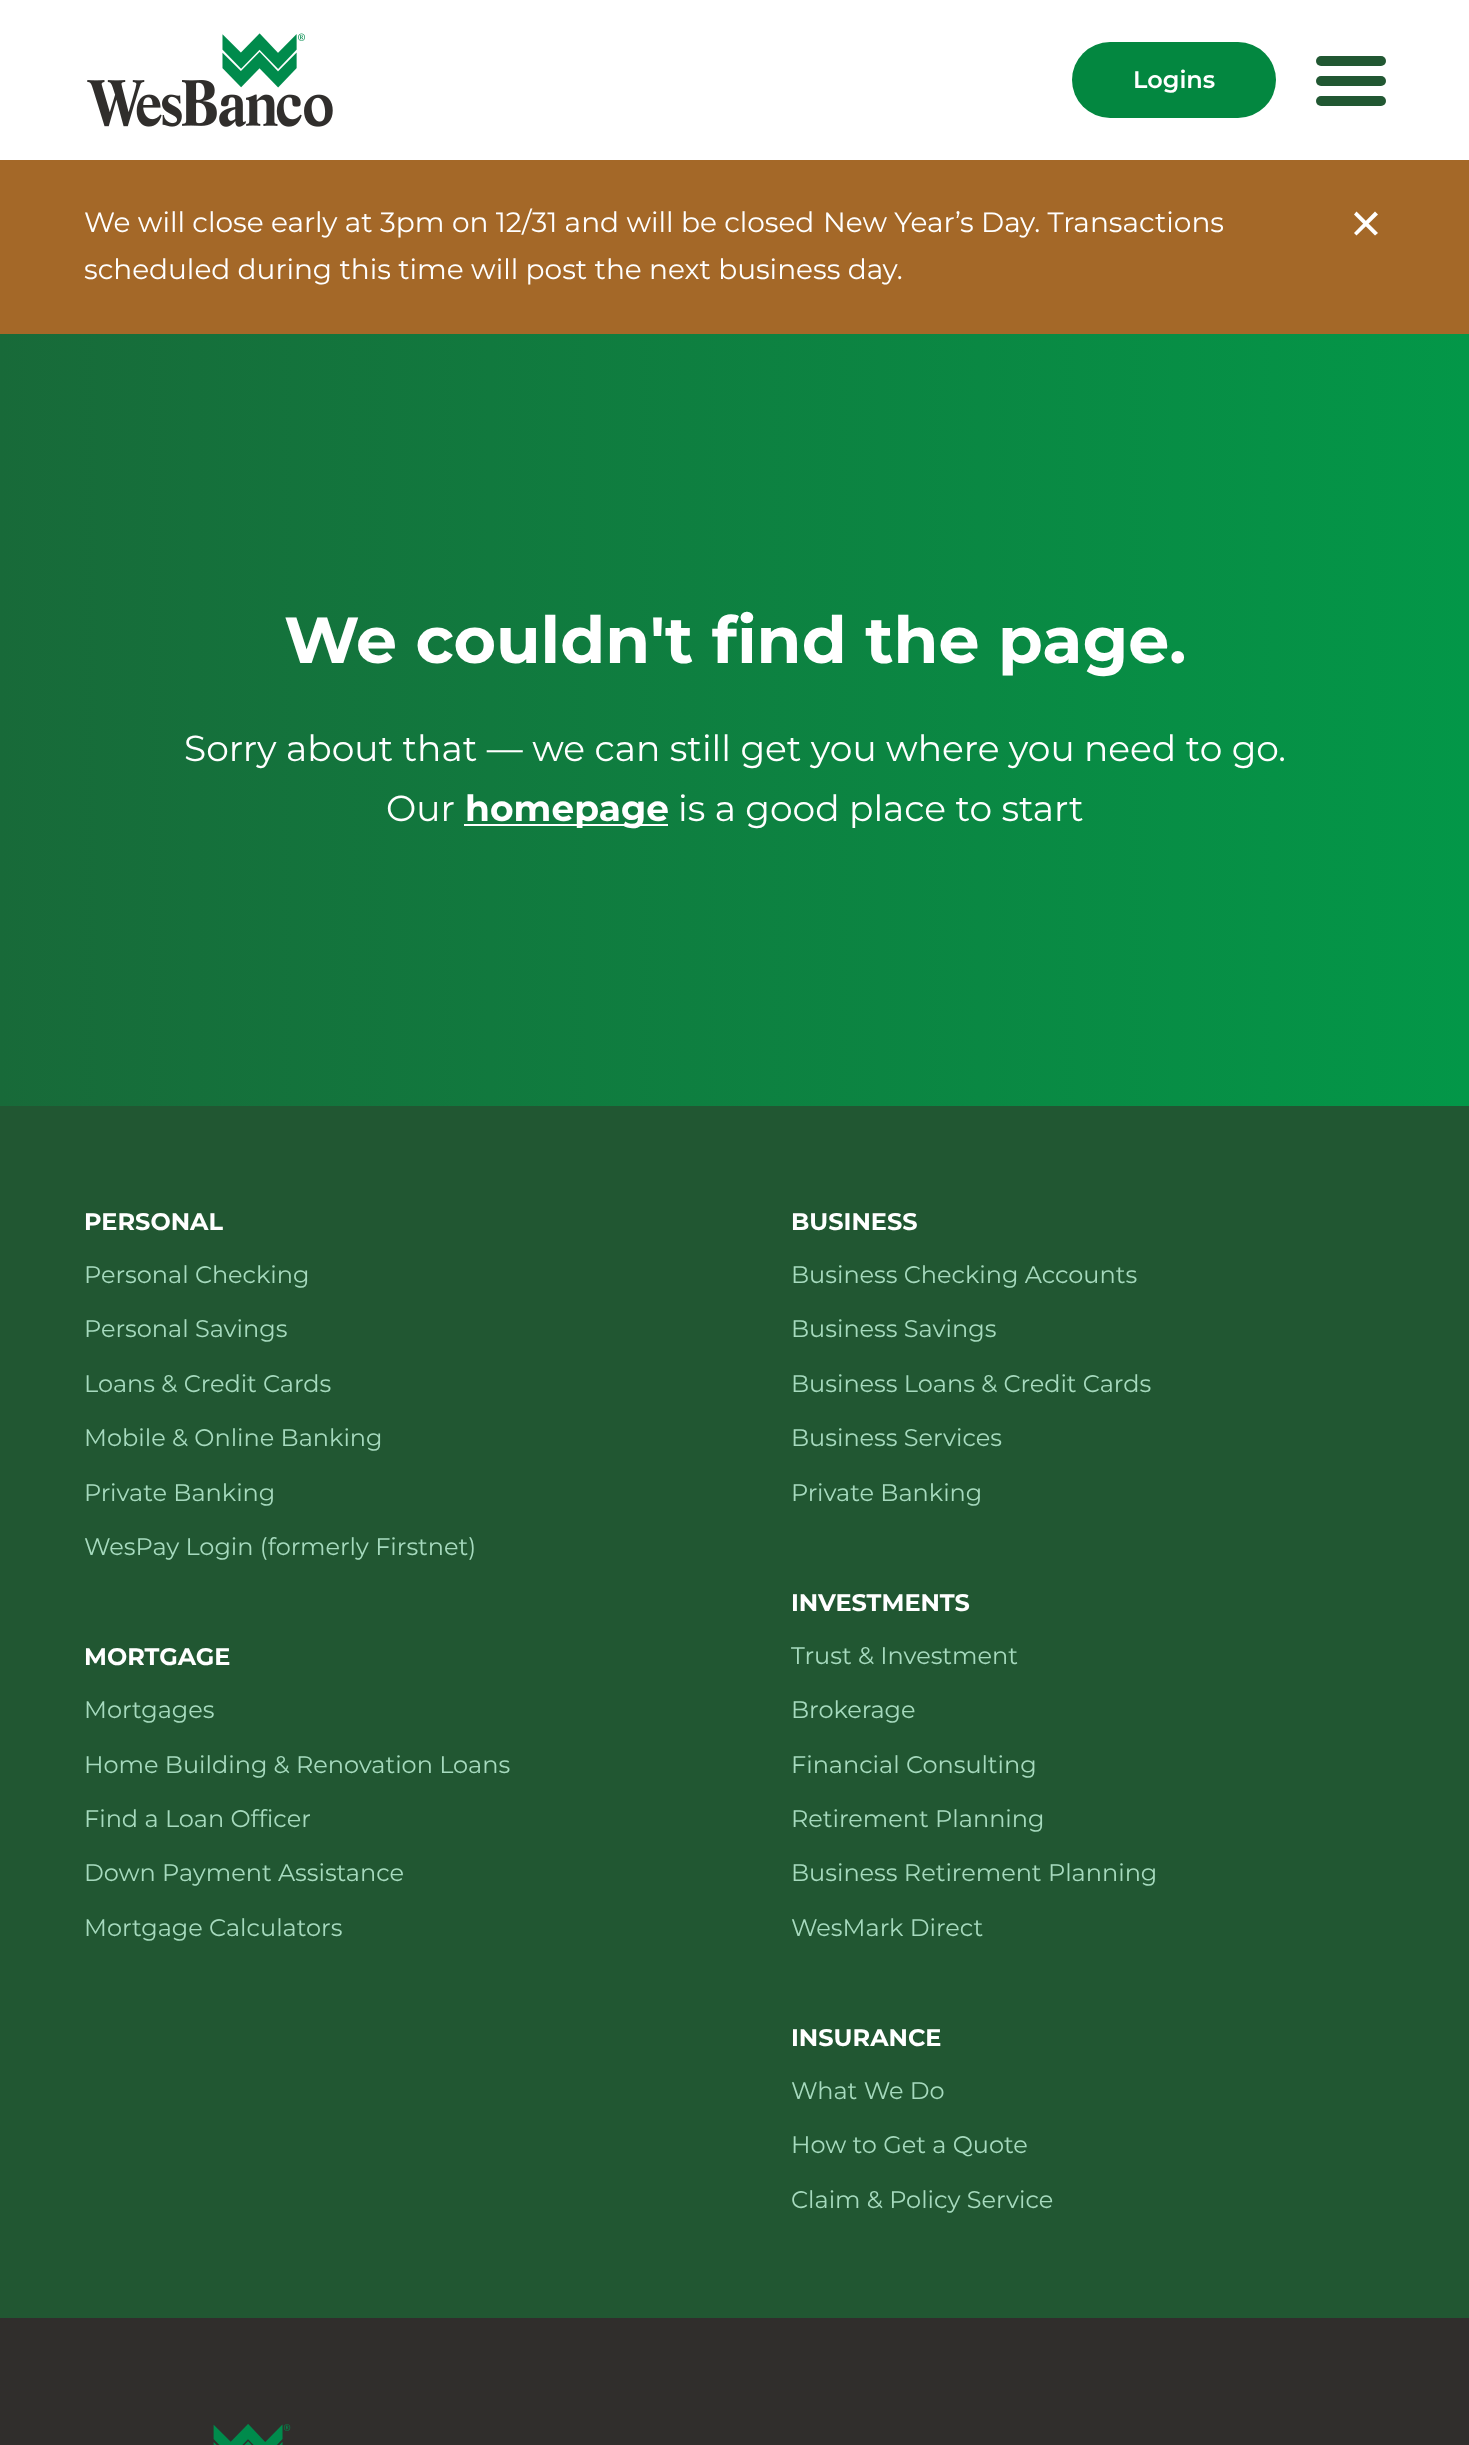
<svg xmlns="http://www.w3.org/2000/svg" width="1469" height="2445">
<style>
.a{font:600 24px Montserrat;fill:#fff}
.b{font:28px Montserrat;fill:#fff}
.c{font:bold 65px Montserrat;fill:#fff}
.d{font:36px Montserrat;fill:#fff}
.e{font:bold 36px Montserrat;fill:#fff}
.f{font:bold 24px Montserrat;fill:#fff}
.g{font:24px Montserrat;fill:#a6dabe}
</style>
<defs>
<linearGradient id="g1" gradientUnits="userSpaceOnUse" x1="0" y1="720" x2="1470" y2="720"><stop offset="0" stop-color="#186a39"/><stop offset="1" stop-color="#039748"/></linearGradient>
</defs>
<rect width="100%" height="100%" fill="#fff"/>
<image href="1.png" x="87" y="33" width="246" height="94"/>
<rect fill="#038740" x="1072" y="42" width="204" height="76" rx="38"/>
<rect fill="#215732" x="1316" y="56" width="70" height="10" rx="5"/>
<rect fill="#215732" x="1316" y="76" width="70" height="10" rx="5"/>
<rect fill="#215732" x="1316" y="96" width="70" height="10" rx="5"/>
<path fill="#a46828" d="M0 160h1469v174H0z"/>
<path fill="#fff" d="M1356.5 211.5l21.5 21.5l-3 2.5l-21-21z"/>
<path fill="#fff" d="M1354 233l21-21.5l3 3l-21.5 21z"/>
<path fill="url(#g1)" d="M0 334h1469v772H0z"/>
<path fill="#fff" d="M464 824h204v2H464z"/>
<path fill="#215732" d="M0 1106h1469v1212H0z"/>
<path fill="#302e2c" d="M0 2318h1469v127H0z"/>
<image href="2.png" x="213" y="2424" width="78" height="21"/>
<text class="a" x="1133" y="88">Logins</text>
<text class="b" x="84" y="232">We will close early at 3pm on 12/31 and will be closed</text>
<text class="b" x="823" y="232">New Year</text>
<text class="b" x="955" y="232">’</text>
<text class="b" x="960" y="232">s Day. Transactions</text>
<text class="b" x="84" y="279">scheduled during this time will post the next business day.</text>
<text class="c" x="284" y="663">We couldn't find the page.</text>
<text class="d" x="184" y="761">Sorry about that — we can still get you where you need to go.</text>
<text class="d" x="386" y="821">Our</text>
<text class="e" x="465" y="821">homepage</text>
<text class="d" x="678" y="821">is a good place to start</text>
<text class="f" x="84" y="1230">PERSONAL</text>
<text class="g" x="84" y="1283">Personal Checking</text>
<text class="g" x="84" y="1337">Personal Savings</text>
<text class="g" x="84" y="1392">Loans &amp; Credit Cards</text>
<text class="g" x="84" y="1446">Mobile &amp; Online Banking</text>
<text class="g" x="84" y="1501">Private Banking</text>
<text class="g" x="84" y="1555">WesPay Login (formerly Firstnet)</text>
<text class="f" x="791" y="1230">BUSINESS</text>
<text class="g" x="791" y="1283">Business Checking Accounts</text>
<text class="g" x="791" y="1337">Business Savings</text>
<text class="g" x="791" y="1392">Business Loans &amp; Credit Cards</text>
<text class="g" x="791" y="1446">Business Services</text>
<text class="g" x="791" y="1501">Private Banking</text>
<text class="f" x="84" y="1665">MORTGAGE</text>
<text class="g" x="84" y="1718">Mortgages</text>
<text class="g" x="84" y="1773">Home Building &amp; Renovation Loans</text>
<text class="g" x="84" y="1827">Find a Loan Officer</text>
<text class="g" x="84" y="1881">Down Payment Assistance</text>
<text class="g" x="84" y="1936">Mortgage Calculators</text>
<text class="f" x="791" y="1611">INVESTMENTS</text>
<text class="g" x="791" y="1664">Trust &amp; Investment</text>
<text class="g" x="791" y="1718">Brokerage</text>
<text class="g" x="791" y="1773">Financial Consulting</text>
<text class="g" x="791" y="1827">Retirement Planning</text>
<text class="g" x="791" y="1881">Business Retirement Planning</text>
<text class="g" x="791" y="1936">WesMark Direct</text>
<text class="f" x="791" y="2046">INSURANCE</text>
<text class="g" x="791" y="2099">What We Do</text>
<text class="g" x="791" y="2153">How to Get a Quote</text>
<text class="g" x="791" y="2208">Claim &amp; Policy Service</text>
</svg>
